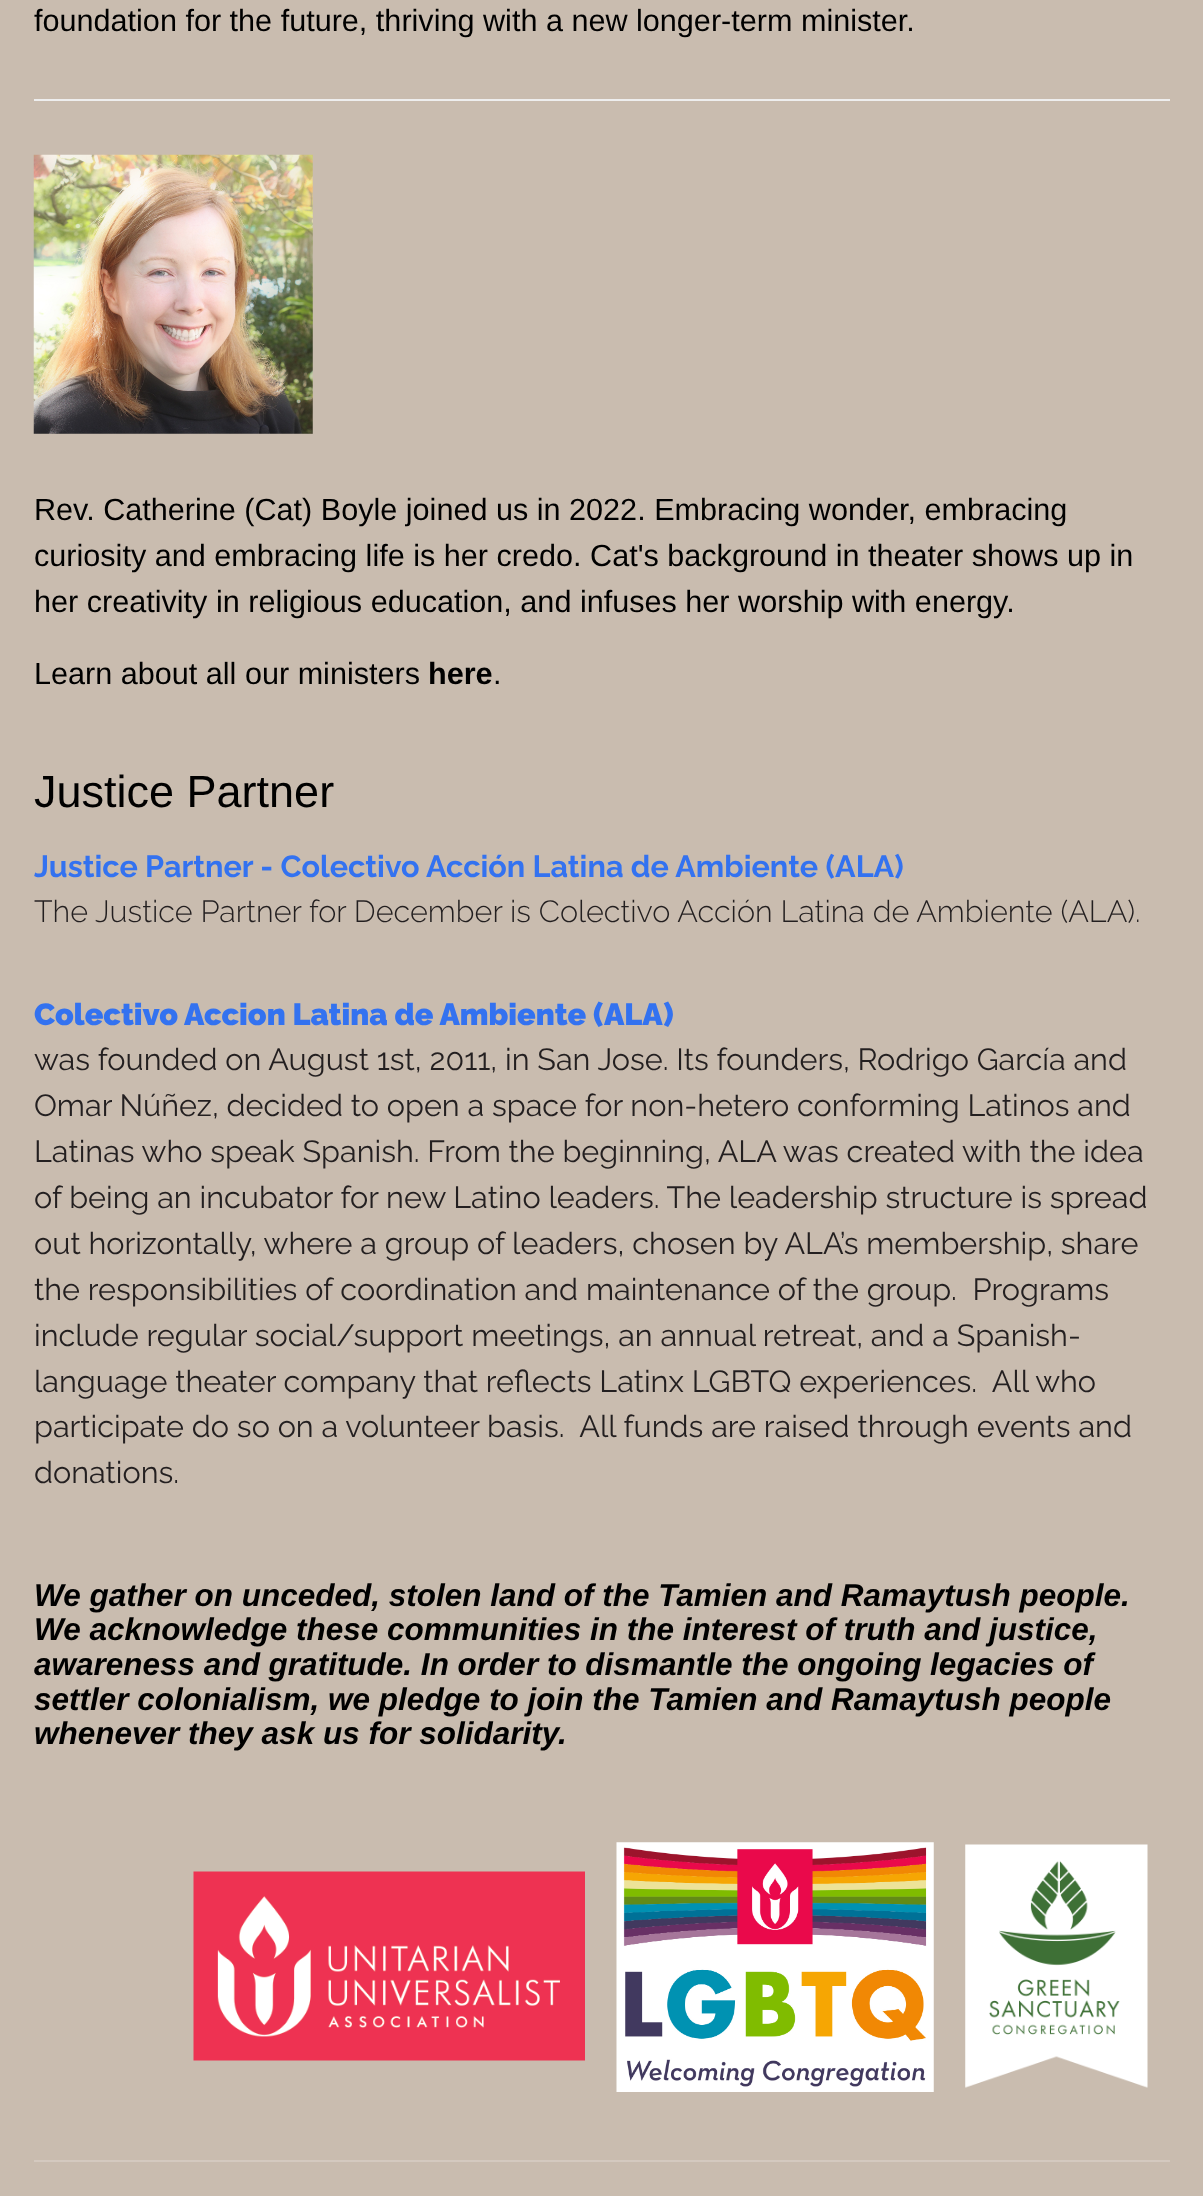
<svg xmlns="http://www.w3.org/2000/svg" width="1203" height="2196">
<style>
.a{font:30.6px Liberation Sans;fill:#000}
.b{font:bold 30.6px Liberation Sans;fill:#000}
.c{font:45px Liberation Sans;fill:#000}
.d{font:bold 30.6px Raleway;fill:#3372f0}
.e{font:300 30.6px Raleway;fill:#231f20}
.f{font:900 30.6px Raleway;fill:#3372f0}
.g{font:30.6px Raleway;fill:#231f20}
.h{font:italic bold 31.5px Liberation Sans;fill:#000}
</style>
<rect width="100%" height="100%" fill="#c9bcaf"/>
<path fill="#eee" d="M34 99h1136v2H34z"/>
<image href="1.png" x="33" y="154" width="280" height="280"/>
<image href="2.png" x="193" y="1871" width="392" height="190"/>
<image href="3.png" x="616" y="1842" width="318" height="250"/>
<image href="4.png" x="965" y="1844" width="183" height="244"/>
<path fill="#d4c9bf" d="M34 2160h1136v2H34z"/>
<text class="a" x="34" y="31">foundation for the future, thriving with a new longer-term minister.</text>
<text class="a" x="34" y="520">Rev. Catherine (Cat) Boyle joined us in 2022. Embracing wonder, embracing</text>
<text class="a" x="34" y="566">curiosity and embracing life is her credo. Cat's background in theater shows up in</text>
<text class="a" x="34" y="612">her creativity in religious education, and infuses her worship with energy.</text>
<text class="a" x="34" y="684">Learn about all our ministers</text>
<text class="b" x="428" y="684">here</text>
<text class="a" x="493" y="684">.</text>
<text class="c" x="34" y="807">Justice Partner</text>
<text class="d" x="34" y="877">Justice Partner - Colectivo Acción Latina de Ambiente (ALA)</text>
<text class="e" x="34" y="922">The Justice Partner for December is Colectivo Acción Latina de Ambiente (ALA).</text>
<text class="f" x="34" y="1025">Colectivo Accion Latina de Ambiente (ALA)</text>
<text class="g" x="34" y="1070">was founded on August 1st, 2011, in San Jose. Its founders, Rodrigo García and</text>
<text class="g" x="34" y="1116">Omar Núñez, decided to open a space for non-hetero conforming Latinos and</text>
<text class="g" x="34" y="1162">Latinas who speak Spanish. From the beginning, ALA was created with the idea</text>
<text class="g" x="34" y="1208">of being an incubator for new Latino leaders. The leadership structure is spread</text>
<text class="g" x="34" y="1254">out horizontally, where a group of leaders, chosen by ALA’s membership, share</text>
<text class="g" xml:space="preserve" x="34" y="1300">the responsibilities of coordination and maintenance of the group.  Programs</text>
<text class="g" x="34" y="1346">include regular social/support meetings, an annual retreat, and a Spanish-</text>
<text class="g" xml:space="preserve" x="34" y="1392">language theater company that reflects Latinx LGBTQ experiences.  All who</text>
<text class="g" xml:space="preserve" x="34" y="1437">participate do so on a volunteer basis.  All funds are raised through events and</text>
<text class="g" x="34" y="1483">donations.</text>
<text class="h" x="34" y="1606">We gather on unceded, stolen land of the Tamien and Ramaytush people.</text>
<text class="h" x="34" y="1640">We acknowledge these communities in the interest of truth and justice,</text>
<text class="h" x="34" y="1675">awareness and gratitude. In order to dismantle the ongoing legacies of</text>
<text class="h" x="34" y="1710">settler colonialism, we pledge to join the Tamien and Ramaytush people</text>
<text class="h" x="34" y="1744">whenever they ask us for solidarity.</text>
</svg>
